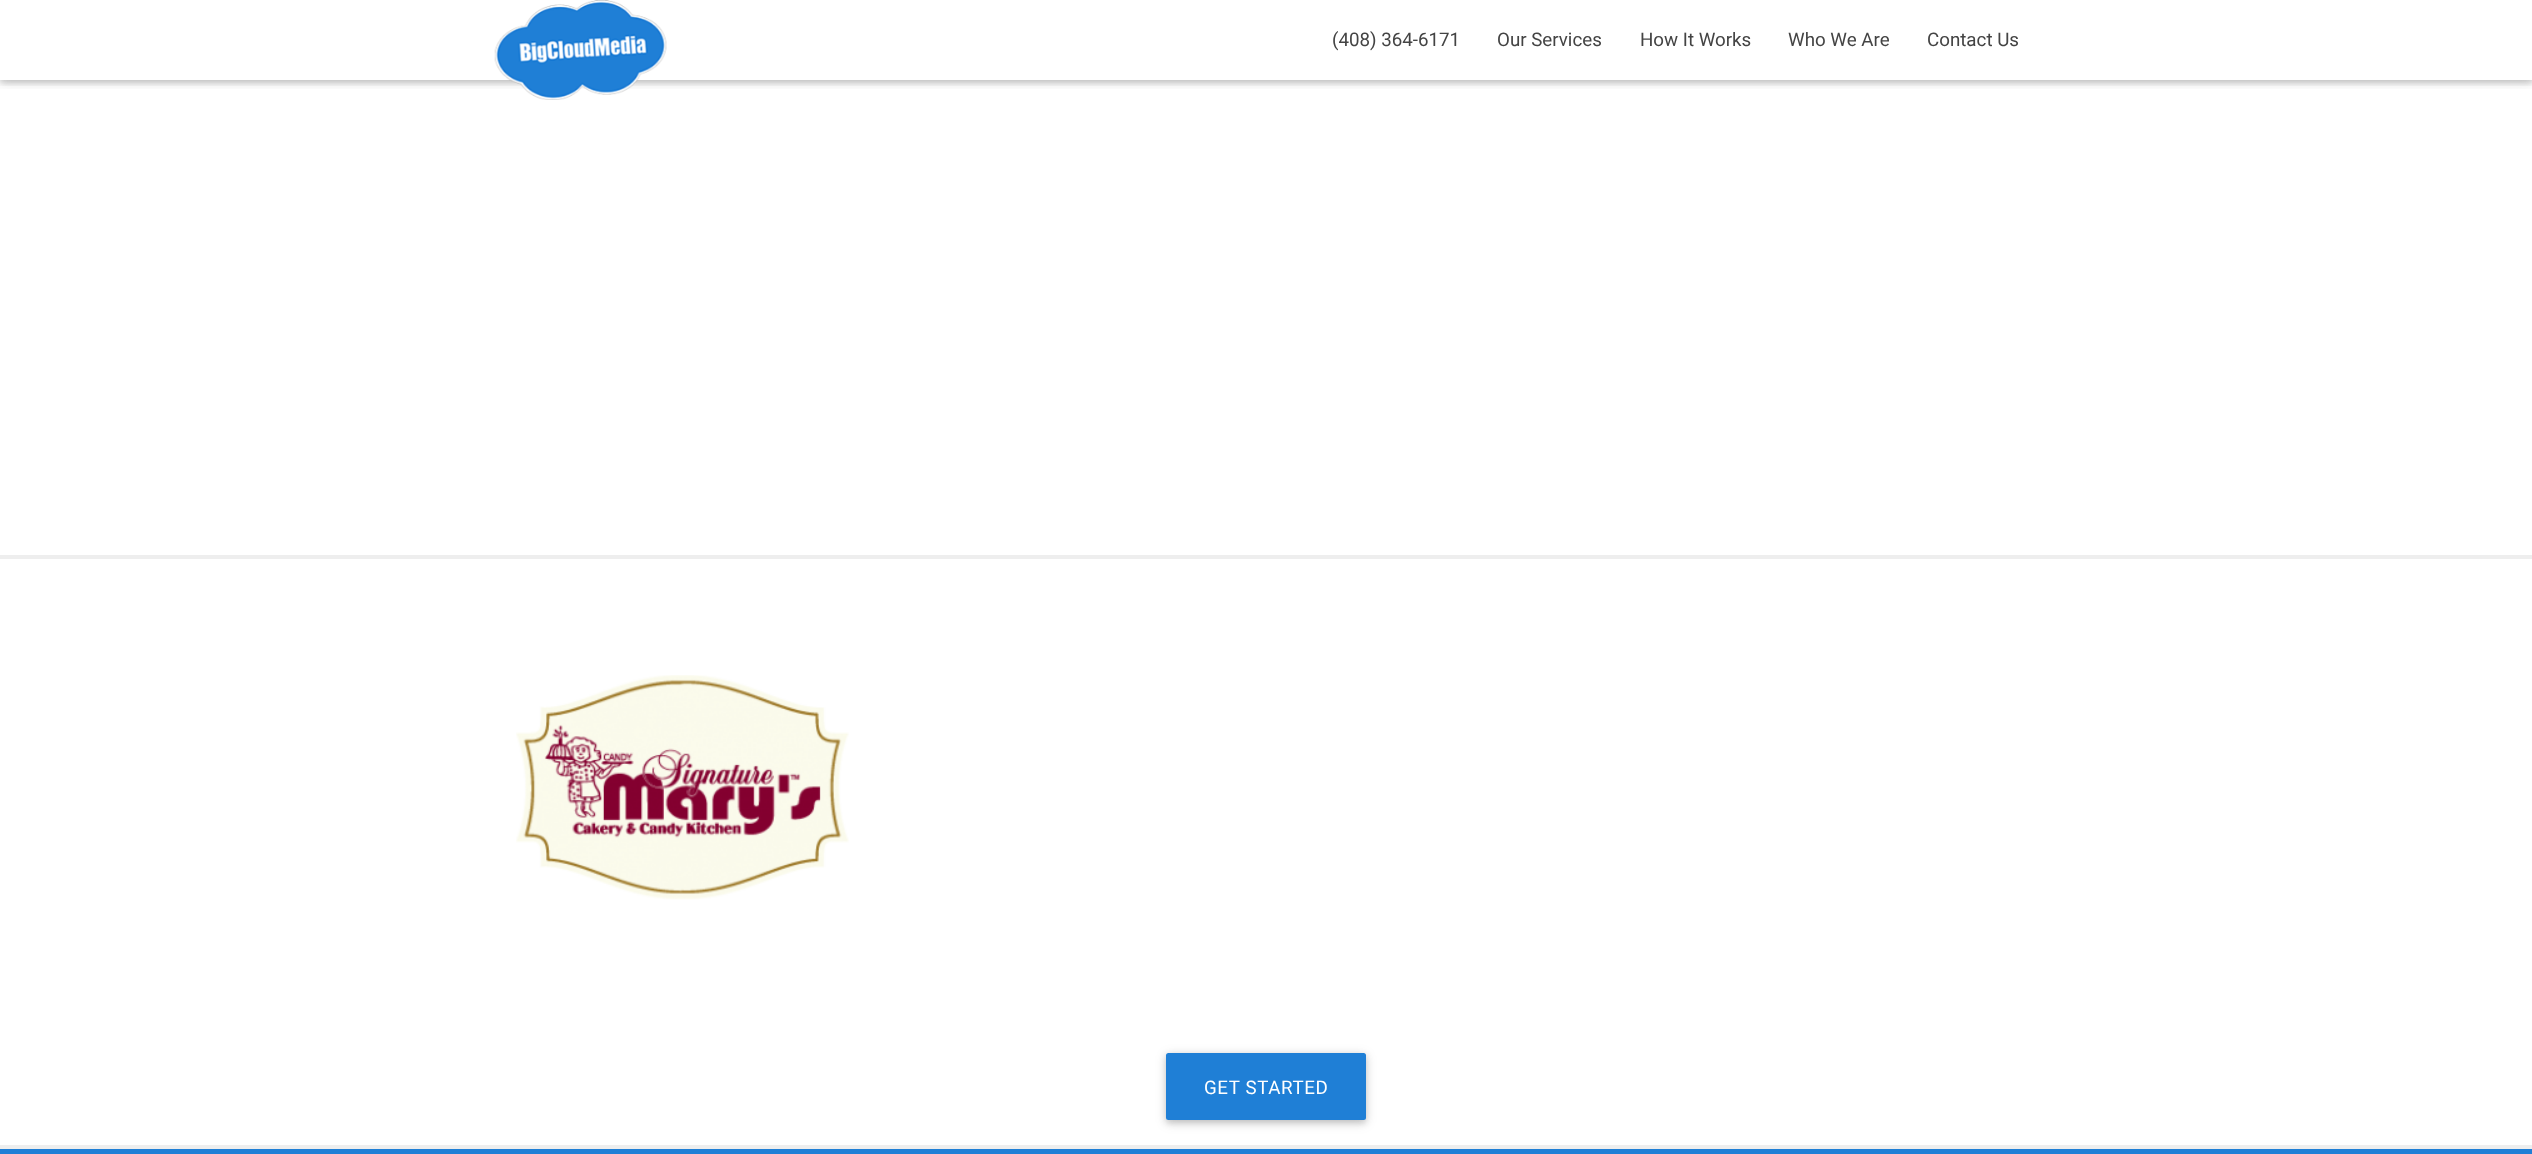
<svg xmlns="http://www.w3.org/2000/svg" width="2532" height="1154">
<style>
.a{font:18.75px Roboto;fill:#444}
.b{font:18.75px Roboto;letter-spacing:0.6px;fill:#fff}
</style>
<defs>
<clipPath id="clip1"><path d="M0 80h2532v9H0z"/></clipPath>
<clipPath id="clip2"><path d="M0 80h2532v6H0z"/></clipPath>
</defs>
<rect width="100%" height="100%" fill="#fff"/>
<g clip-path="url(#clip1)">
<path fill="#0000001f" filter="blur(6px)" d="M0 3h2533v80H0z"/>
</g>
<g clip-path="url(#clip2)">
<path fill="#00000029" filter="blur(3px)" d="M0 3h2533v80H0z"/>
</g>
<image href="1.png" x="494" y="0" width="173" height="100"/>
<path fill="#eee" d="M0 555h2532v4H0z"/>
<image href="2.png" x="516" y="675" width="333" height="225"/>
<rect fill="#0000001f" filter="blur(6px)" x="1166" y="1055" width="200" height="68" rx="2.5"/>
<rect fill="#00000029" filter="blur(3px)" x="1166" y="1055" width="200" height="68" rx="2.5"/>
<rect fill="#1f7fd6" x="1166" y="1053" width="200" height="67" rx="2.5"/>
<path fill="#eee" d="M0 1145h2532v4H0z"/>
<path fill="#1f7fd6" d="M0 1149h2532v5H0z"/>
<text class="a" x="1332" y="46">(408) 364-6171</text>
<text class="a" x="1497" y="46">Our Services</text>
<text class="a" x="1640" y="46">How It Works</text>
<text class="a" x="1788" y="46">Who We Are</text>
<text class="a" x="1927" y="46">Contact Us</text>
<text class="b" x="1204" y="1094">GET STARTED</text>
</svg>
